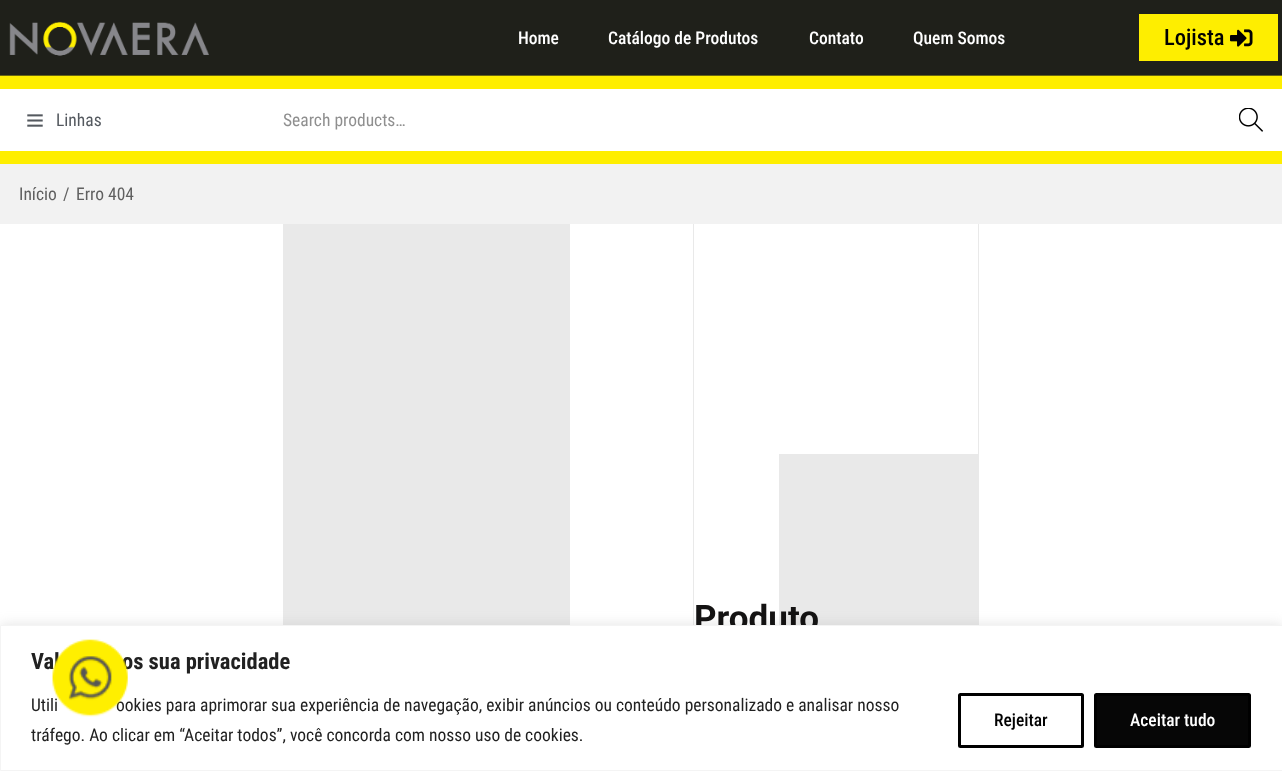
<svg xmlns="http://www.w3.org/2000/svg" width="1282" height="771">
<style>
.a{font:500 17.5px Roboto Condensed;fill:#fff}
.b{font:500 22.5px Roboto Condensed;fill:#020202}
.c{font:17.5px Roboto Condensed;fill:#54595f}
.d{font:17.5px Roboto Condensed;fill:#8f8f8f}
.e{font:17.5px Roboto Condensed;fill:#606060}
.f{font:bold 35px Roboto;fill:#141313}
.g{font:bold 22.5px Roboto Condensed;fill:#212121}
.h{font:17.5px Roboto Condensed;fill:#212121}
.i{font:500 17.5px Roboto Condensed;fill:#020202}
</style>
<rect width="100%" height="100%" fill="#fff"/>
<path fill="#1f201a" d="M0 0h1282v75H0z"/>
<path fill="#696612" d="M0 75h1282v1H0z"/>
<image href="1.png" x="9" y="21" width="201" height="35"/>
<path fill="#feee00" d="M1139 14h139v47H1139z"/>
<image href="2.png" x="1230" y="29" width="23" height="18"/>
<path fill="#feee00" d="M0 76h1282v88H0z"/>
<path fill="#fff" d="M0 89h1282v62H0z"/>
<image href="3.png" x="27" y="114" width="16" height="13"/>
<image href="4.png" x="1239" y="108" width="25" height="24"/>
<path fill="#f2f2f2" d="M0 164h1282v60H0z"/>
<path fill="#e9e9e9" d="M283 224h287v401H283z"/>
<path fill="#e9e9e9" d="M978 224h1v401H978z"/>
<path fill="#e9e9e9" d="M693 224h1v401H693z"/>
<path fill="#e9e9e9" d="M779 454h199v171H779z"/>
<path fill="#acabab4d" filter="blur(6px)" d="M0 624h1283v146H0z"/>
<text class="a" x="518" y="44">Home</text>
<text class="a" x="608" y="44">Catálogo de Produtos</text>
<text class="a" x="809" y="44">Contato</text>
<text class="a" x="913" y="44">Quem Somos</text>
<text class="b" x="1164" y="45">Lojista</text>
<text class="c" x="56" y="126">Linhas</text>
<text class="d" x="283" y="126">Search products…</text>
<text class="e" x="19" y="200">Início</text>
<text class="e" x="63" y="200">/</text>
<text class="e" x="76" y="200">Erro 404</text>
<text class="f" x="694" y="630">Produto</text>
<path fill="#fff" stroke="#f4f4f4" d="M0.5 625.5h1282v145H0.5z"/>
<text class="g" x="31" y="669">Val</text>
<text class="g" x="122" y="669">os sua privacidade</text>
<text class="h" x="31" y="711">Utili</text>
<text class="h" x="116" y="711">ookies para aprimorar sua experiência de navegação, exibir anúncios ou conteúdo personalizado e analisar nosso</text>
<image href="5.png" x="52" y="639" width="76" height="78"/>
<text class="h" x="31" y="741">tráfego. Ao clicar em “Aceitar todos”, você concorda com nosso uso de cookies.</text>
<rect fill="none" stroke="#000" stroke-width="3" x="959.5" y="694.5" width="123" height="52" rx="1"/>
<text class="i" x="994" y="726">Rejeitar</text>
<rect fill="#060606" stroke="#000" stroke-width="3" x="1095.5" y="694.5" width="154" height="52" rx="1"/>
<text class="a" x="1130" y="726">Aceitar tudo</text>
</svg>
